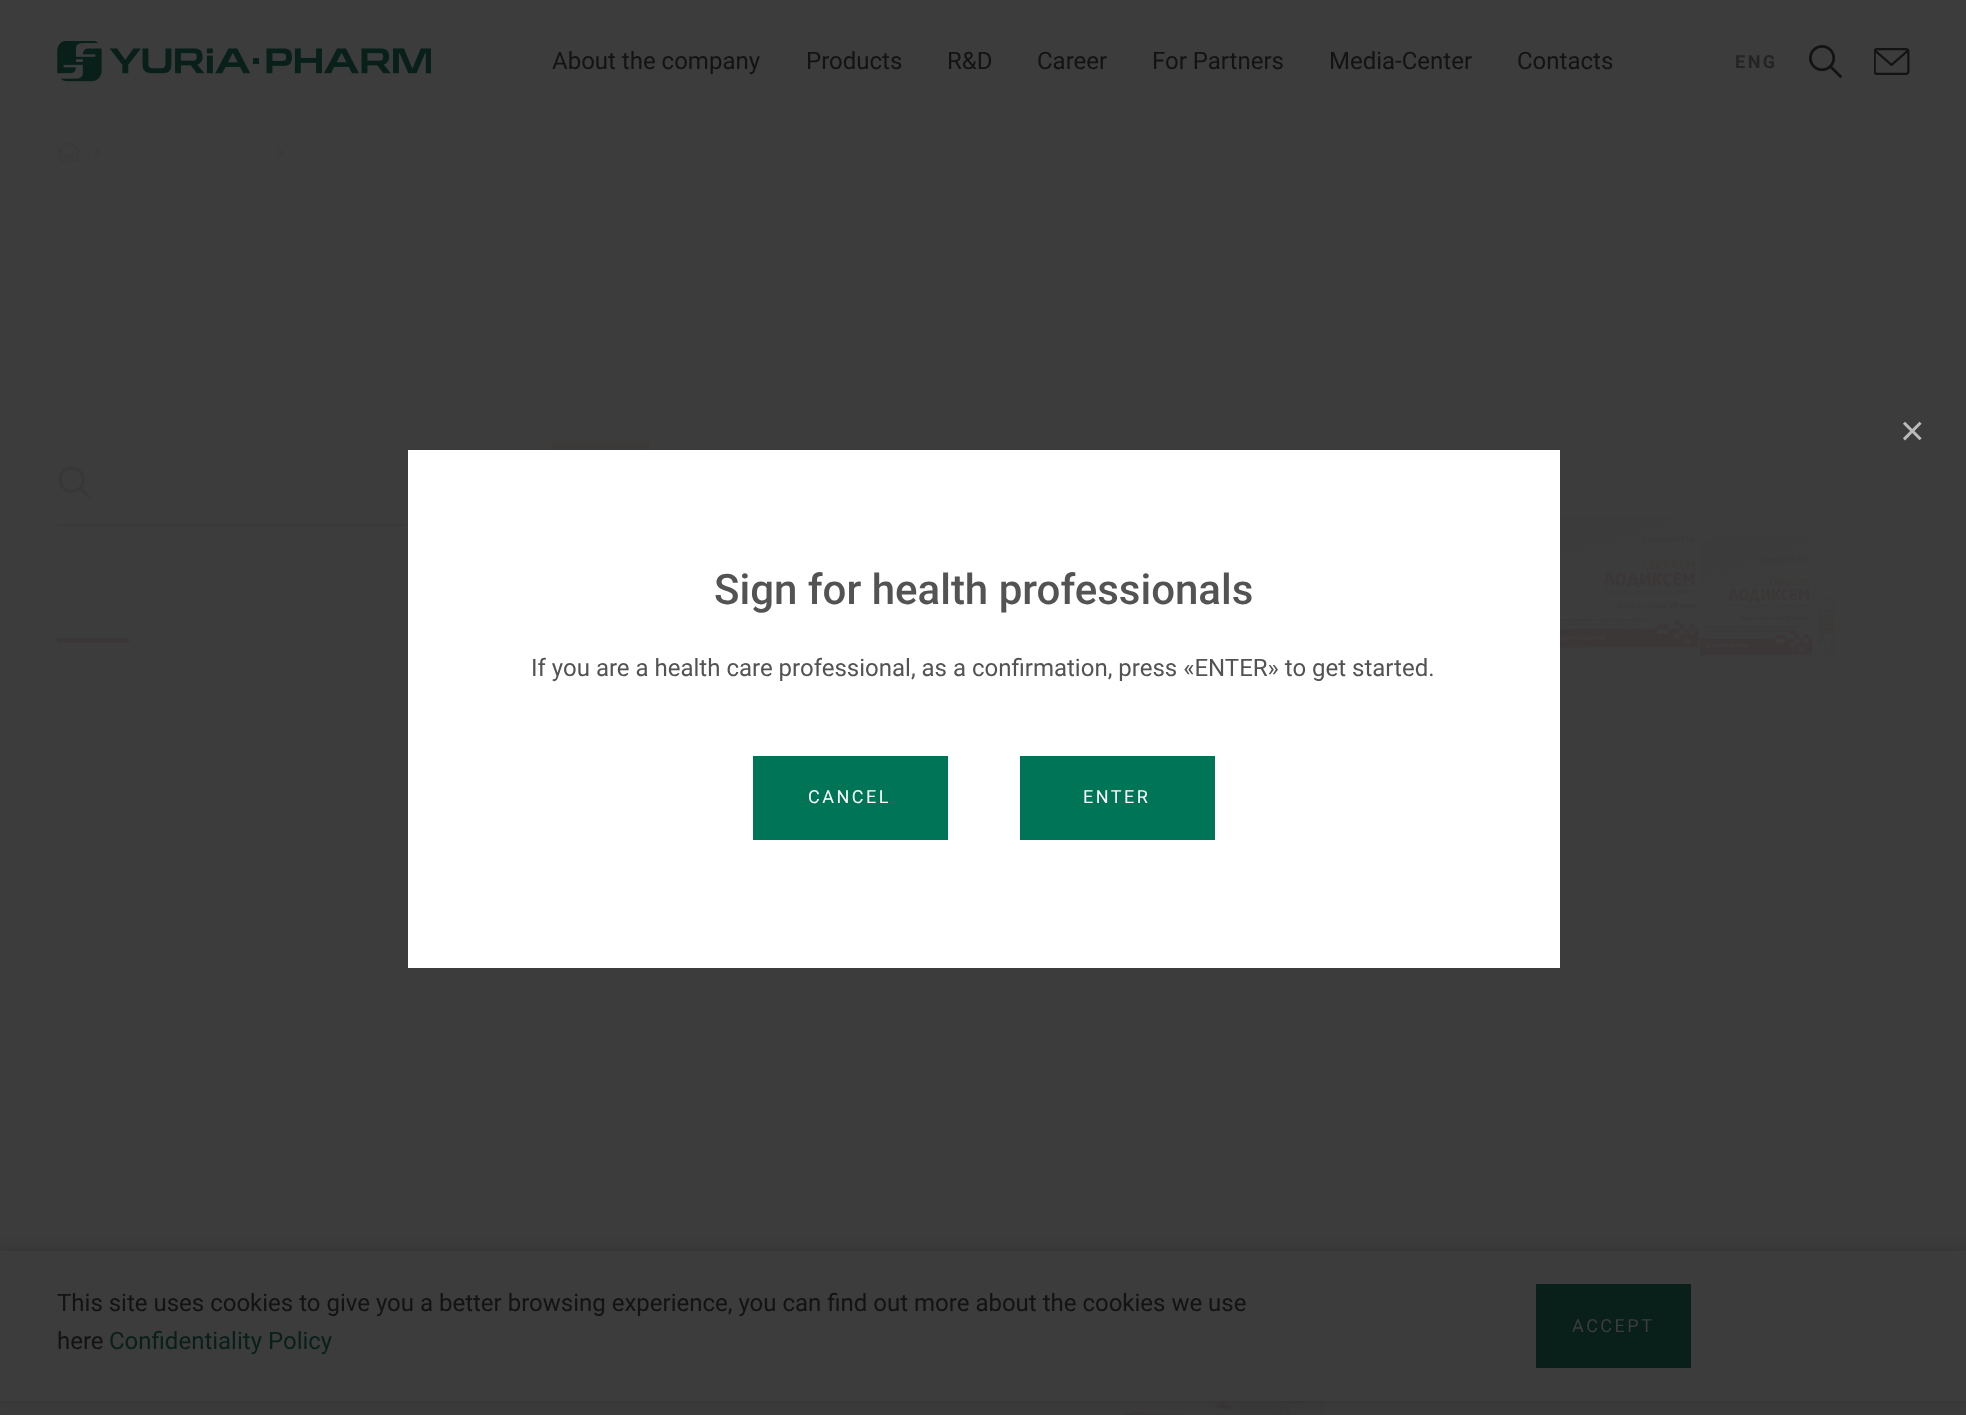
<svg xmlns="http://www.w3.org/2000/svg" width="1966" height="1415">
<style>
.a{font:24px Roboto;fill:#131313}
.b{font:bold 18px Roboto;letter-spacing:2.5px;fill:#242424}
.c{font:24px Roboto;fill:#09201a}
.d{font:18px Roboto;letter-spacing:2.5px;fill:#3c3c3c}
.e{font:42px Liberation Sans;fill:#bbb}
.f{font:500 42px Roboto;fill:#535353}
.g{font:24px Roboto;fill:#535353}
.h{font:18px Roboto;letter-spacing:2.5px;fill:#fff}
</style>
<rect width="100%" height="100%" fill="#3c3c3c"/>
<image href="1.png" x="57" y="41" width="374" height="41"/>
<image href="2.png" x="1809" y="45" width="33" height="33"/>
<image href="3.png" x="1874" y="48" width="36" height="27"/>
<image href="4.png" x="57" y="141" width="24" height="21"/>
<image href="5.png" x="94" y="147" width="7" height="12"/>
<image href="5.png" x="277" y="147" width="7" height="12"/>
<image href="6.png" x="58" y="466" width="34" height="34"/>
<path fill="#393939" d="M57 524h348v2H57z"/>
<path fill="#3b3738" d="M57 638h72v5H57z"/>
<path fill="#3c3939" d="M552 441h99v9H552z"/>
<image href="7.png" x="1560" y="515" width="275" height="142"/>
<image href="8.png" x="1122" y="1401" width="202" height="14"/>
<path fill="#09090933" filter="blur(7.5px)" d="M0 1251h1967v150H0z"/>
<path fill="#3c3c3c" d="M0 1251h1966v150H0z"/>
<path fill="#09201a" d="M1536 1284h155v84H1536z"/>
<path fill="#fff" d="M408 450h1152v518H408z"/>
<path fill="#007456" d="M753 756h195v84H753z"/>
<path fill="#007456" d="M1020 756h195v84H1020z"/>
<text class="a" x="552" y="69">About the company</text>
<text class="a" x="806" y="69">Products</text>
<text class="a" x="947" y="69">R&amp;D</text>
<text class="a" x="1037" y="69">Career</text>
<text class="a" x="1152" y="69">For Partners</text>
<text class="a" x="1329" y="69">Media-Center</text>
<text class="a" x="1517" y="69">Contacts</text>
<text class="b" x="1735" y="68">ENG</text>
<text class="a" x="57" y="1311">This site uses cookies to give you a better browsing experience, you can find out more about the cookies we use</text>
<text class="a" x="57" y="1349">here</text>
<text class="c" x="109" y="1349">Confidentiality Policy</text>
<text class="d" x="1572" y="1332">ACCEPT</text>
<text class="e" x="1900" y="445">×</text>
<text class="f" x="714" y="604">Sign for health professionals</text>
<text class="g" x="531" y="676">If you are a health care professional, as a confirmation, press «ENTER» to get started.</text>
<text class="h" x="808" y="803">CANCEL</text>
<text class="h" x="1083" y="803">ENTER</text>
</svg>
